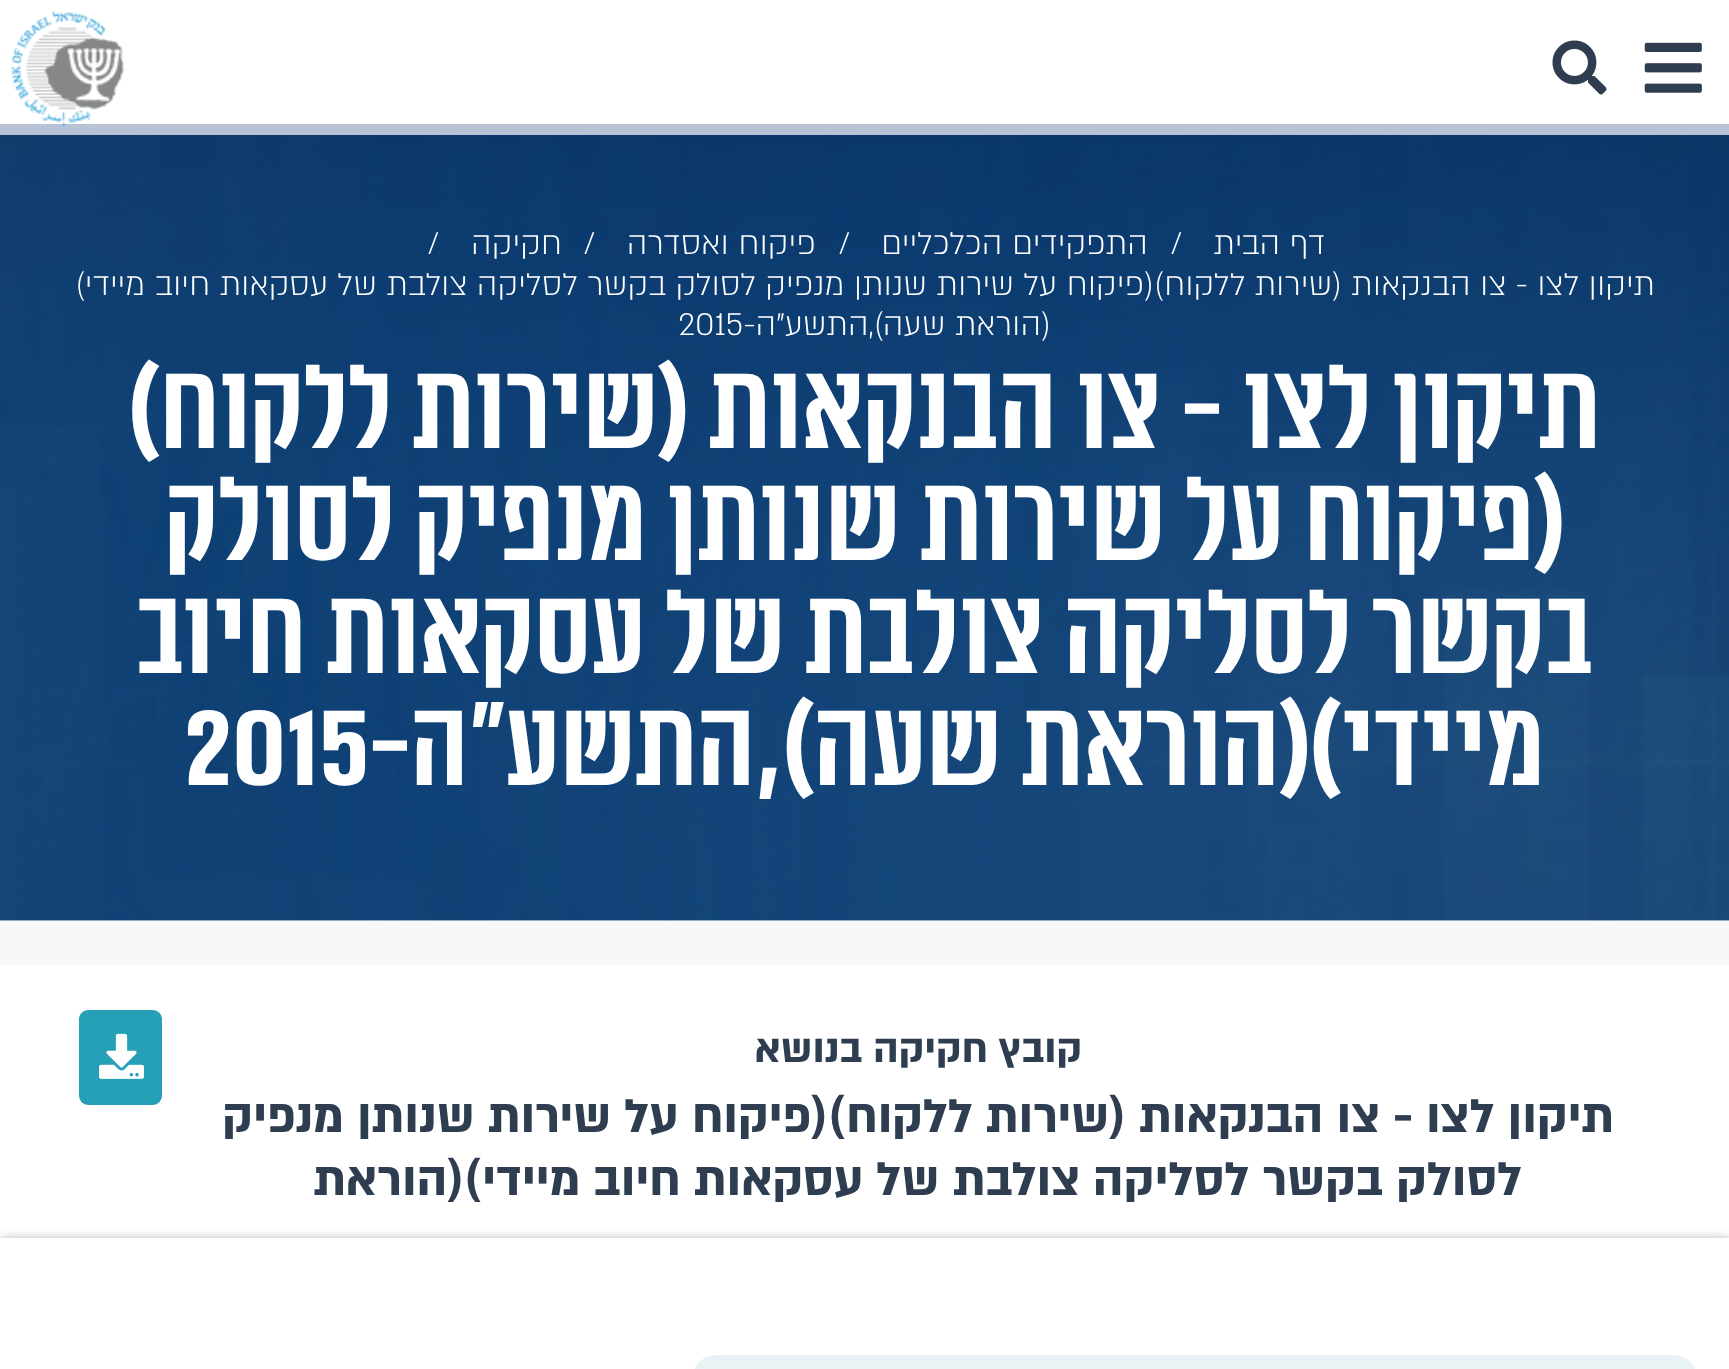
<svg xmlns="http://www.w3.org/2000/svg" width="1729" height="1369">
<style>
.a{font:300 36px 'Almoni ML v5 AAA';direction:rtl;fill:#fff}
.b{font:300 36px 'Almoni ML v5 AAA';fill:#fff}
.c{font:bold 123.75px 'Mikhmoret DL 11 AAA';direction:rtl;fill:#fff}
.d{font:bold 123.75px 'Mikhmoret DL 11 AAA';fill:#fff}
.e{font:bold 45px 'Almoni ML v5 AAA';direction:rtl;fill:#2e3d50}
.f{font:bold 54px 'Almoni ML v5 AAA';direction:rtl;fill:#2e3d50}
</style>
<rect width="100%" height="100%" fill="#f8f8f8"/>
<path fill="#fff" d="M0 0h1729v124H0z"/>
<path fill="#b8c4d5" d="M0 124h1729v11H0z"/>
<image href="1.png" x="1644" y="42" width="58" height="51"/>
<image href="2.png" x="1552" y="40" width="55" height="55"/>
<image href="3.png" x="11" y="11" width="114" height="117"/>
<image href="4.png" x="0" y="920" width="1729" height="1"/>
<image href="5.png" x="0" y="135" width="1729" height="786"/>
<path fill="#fff" d="M0 965h1729v273H0z"/>
<rect fill="#25a0b6" stroke="#25a0b6" stroke-width="2" x="80" y="1011" width="81" height="93" rx="8"/>
<image href="6.png" x="99" y="1033" width="45" height="46"/>
<path fill="#000000cc" filter="blur(7px)" d="M0 1244h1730v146H0z"/>
<path fill="#fff" d="M0 1238h1729v131H0z"/>
<image href="7.png" x="695" y="1355" width="1000" height="14"/>
<text class="a" x="1325" y="254">דף הבית</text>
<text class="b" x="1171" y="254">/</text>
<text class="a" x="1148" y="254">התפקידים הכלכליים</text>
<text class="b" x="839" y="254">/</text>
<text class="a" x="816" y="254">פיקוח ואסדרה</text>
<text class="b" x="584" y="254">/</text>
<text class="a" x="562" y="254">חקיקה</text>
<text class="b" x="428" y="254">/</text>
<text class="a" x="1655" y="295">תיקון לצו - צו הבנקאות (שירות ללקוח)(פיקוח על שירות שנותן מנפיק לסולק בקשר לסליקה צולבת של עסקאות חיוב מיידי)</text>
<text class="a" x="1051" y="335">(הוראת שעה),התשע"ה-</text>
<text class="b" x="678" y="335">2015</text>
<text class="c" x="1601" y="448">תיקון לצו - צו הבנקאות (שירות ללקוח)</text>
<text class="c" x="1565" y="560">(פיקוח על שירות שנותן מנפיק לסולק</text>
<text class="c" x="1594" y="673">בקשר לסליקה צולבת של עסקאות חיוב</text>
<text class="c" x="1545" y="785">מיידי)(הוראת שעה),התשע"ה-</text>
<text class="d" x="185" y="785">2015</text>
<text class="e" x="1082" y="1062">קובץ חקיקה בנושא</text>
<text class="f" x="1614" y="1132">תיקון לצו - צו הבנקאות (שירות ללקוח)(פיקוח על שירות שנותן מנפיק</text>
<text class="f" x="1522" y="1195">לסולק בקשר לסליקה צולבת של עסקאות חיוב מיידי)(הוראת</text>
</svg>
